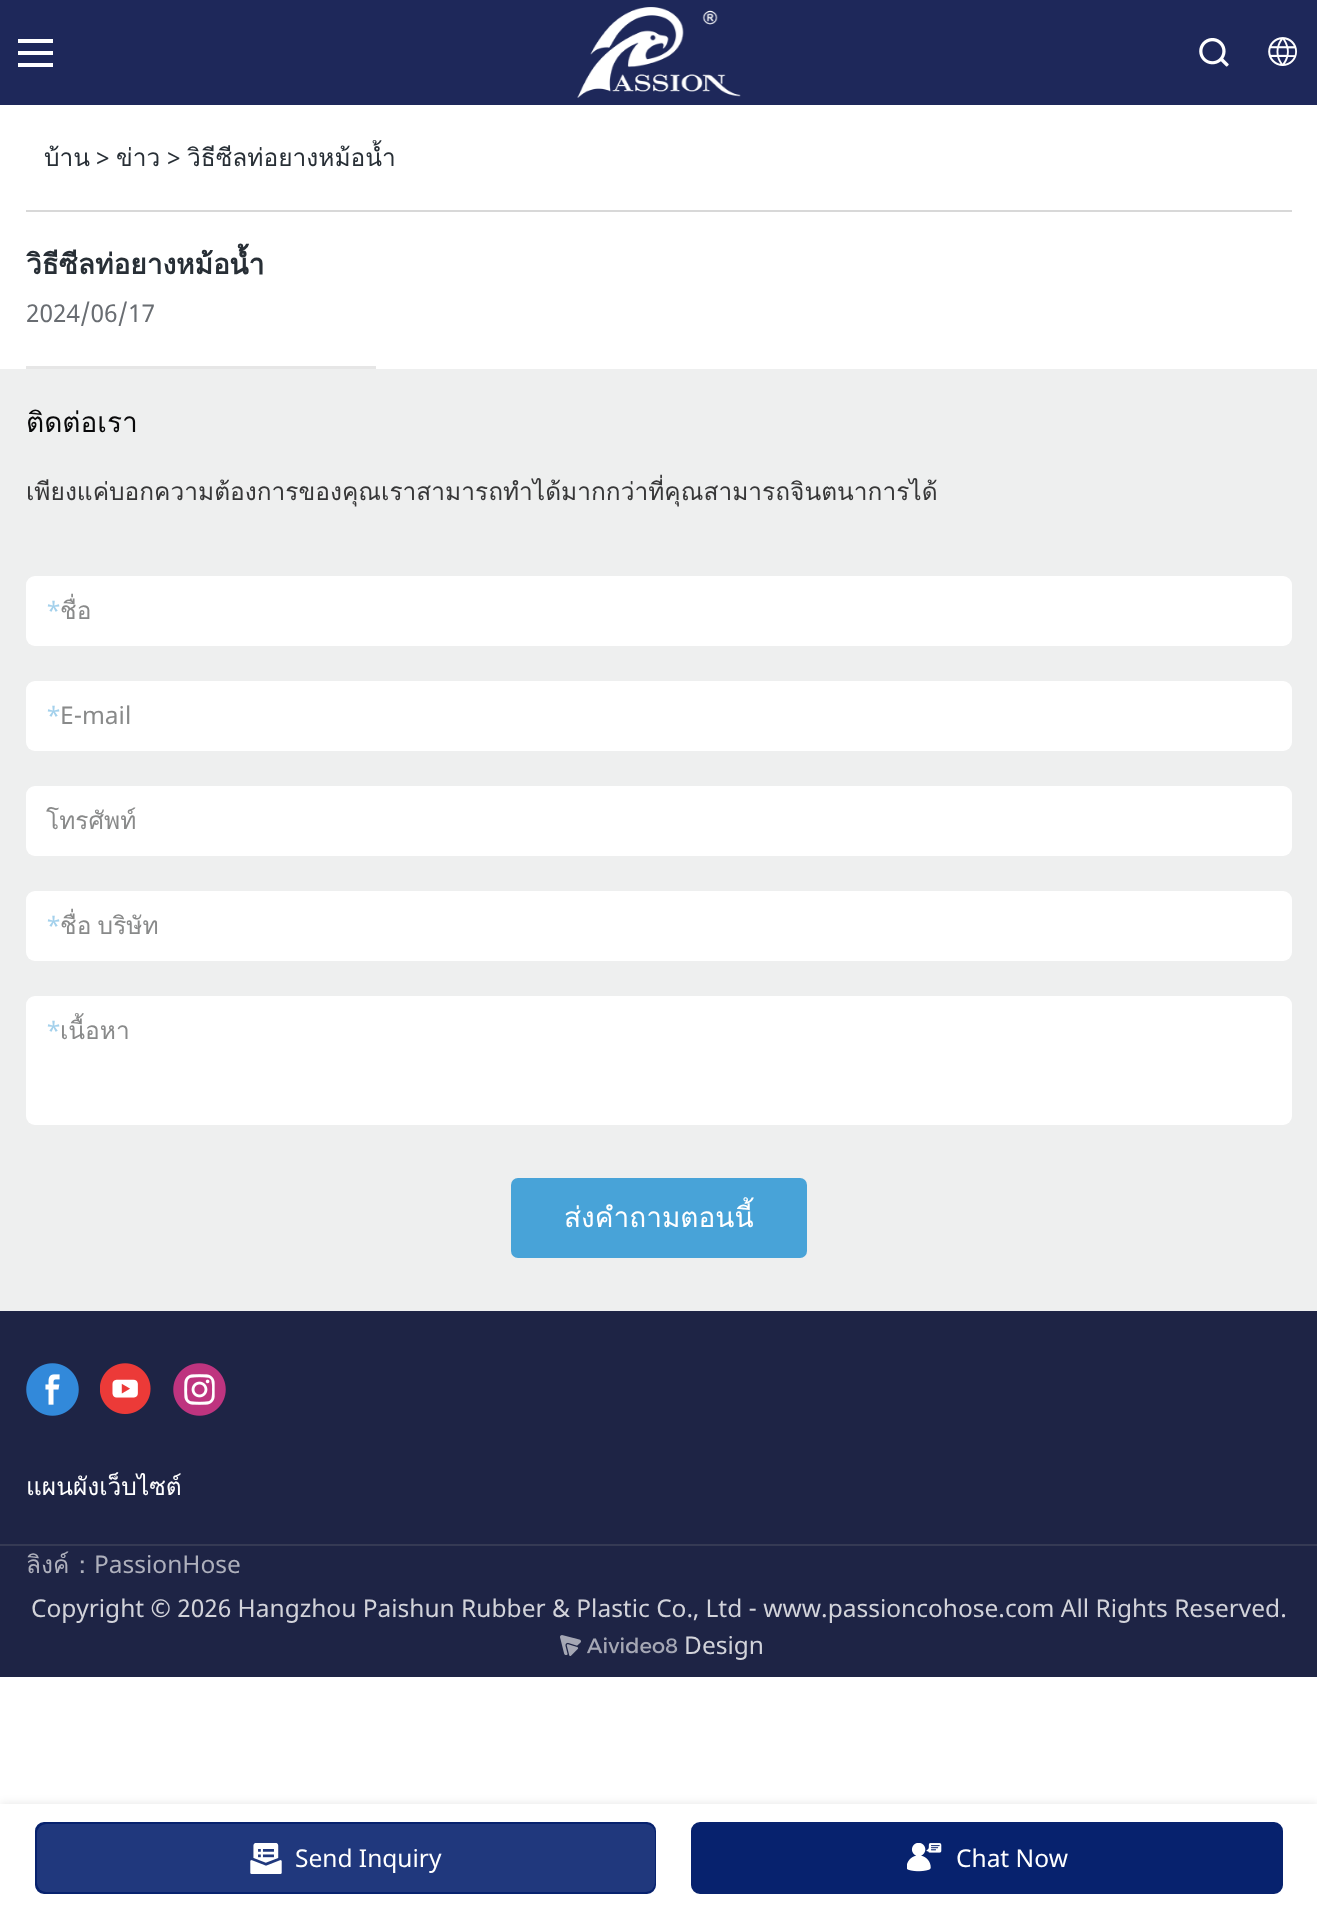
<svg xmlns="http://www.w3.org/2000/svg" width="1317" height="1910">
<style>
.a{font:24.5px Loma;fill:#282f36}
.b{font:24.5px Noto Sans;fill:#282f36}
.c{font:bold 28px Loma;fill:#282f36}
.d{font:24.5px Noto Sans;fill:#696d72}
.e{font:28px Loma;fill:#09090a}
.f{font:24.5px Loma;fill:#373738}
.g{font:24.5px Noto Sans;fill:#a4d1ec}
.h{font:24.5px Loma;fill:#898a8a}
.i{font:24.5px Noto Sans;fill:#898a8a}
.j{font:28px Loma;fill:#fff}
.k{font:24.5px Loma;fill:#fff}
.l{font:24.5px Loma;fill:#aeb0bc}
.m{font:500 24.5px WenQuanYi Zen Hei;fill:#aeb0bc}
.n{font:24.5px Noto Sans;fill:#aeb0bc}
.o{font:24.5px Noto Sans;fill:#d2d3da}
.p{font:24.5px Noto Sans;fill:#fff}
</style>
<defs>
<clipPath id="clip1"><path d="M26 212h1266v157H26z"/></clipPath>
</defs>
<rect width="100%" height="100%" fill="#fff"/>
<path fill="#1e285a" d="M0 0h1317v105H0z"/>
<path fill="#fff" d="M18 39h35v4H18z"/>
<path fill="#fff" d="M18 51h35v4H18z"/>
<path fill="#fff" d="M18 63h35v4H18z"/>
<image href="1.png" x="577" y="7" width="164" height="91"/>
<image href="2.png" x="1199" y="38" width="30" height="29"/>
<image href="3.png" x="1268" y="37" width="29" height="29"/>
<path fill="#d8d8d8" d="M26 210h1266v2H26z"/>
<path fill="#e6e6e6" d="M26 366h350v3H26z"/>
<path fill="#eeefef" d="M0 369h1317v942H0z"/>
<rect fill="#fff" x="26" y="576" width="1266" height="70" rx="9"/>
<rect fill="#fff" x="26" y="681" width="1266" height="70" rx="9"/>
<rect fill="#fff" x="26" y="786" width="1266" height="70" rx="9"/>
<rect fill="#fff" x="26" y="891" width="1266" height="70" rx="9"/>
<rect fill="#fff" x="26" y="996" width="1266" height="129" rx="9"/>
<rect fill="#48a3d8" x="511" y="1178" width="296" height="80" rx="7"/>
<path fill="#1e2445" d="M0 1311h1317v233H0z"/>
<image href="4.png" x="26" y="1363" width="53" height="53"/>
<image href="5.png" x="100" y="1363" width="51" height="51"/>
<image href="6.png" x="173" y="1363" width="53" height="53"/>
<path fill="#1e2445" d="M0 1546h1317v131H0z"/>
<path fill="#353a54" d="M0 1544h1317v2H0z"/>
<image href="7.png" x="560" y="1635" width="118" height="21"/>
<path fill="#0000001a" filter="blur(5px)" d="M0 1804h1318v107H0z"/>
<path fill="#fff" d="M0 1804h1317v106H0z"/>
<rect fill="#07226e" stroke="#07226e" stroke-width="2" x="36" y="1823" width="619" height="70" rx="8"/>
<rect fill="#20387d" x="37" y="1824" width="618" height="68" rx="9"/>
<image href="8.png" x="250" y="1843" width="32" height="31"/>
<rect fill="#07226e" stroke="#07226e" stroke-width="2" x="692" y="1823" width="590" height="70" rx="8"/>
<image href="9.png" x="907" y="1843" width="35" height="29"/>
<text class="a" x="44" y="166">บ้าน</text>
<text class="b" x="96" y="166">&gt;</text>
<text class="a" x="116" y="166">ข่าว</text>
<text class="b" x="167" y="166">&gt;</text>
<text class="a" x="187" y="166">วิธีซีลท่อยางหม้อน้ำ</text>
<g clip-path="url(#clip1)">
<text class="c" x="26" y="274">วิธีซีลท่อยางหม้อน้ำ</text>
</g>
<text class="d" x="26" y="322">2024/06/17</text>
<text class="e" x="26" y="432">ติดต่อเรา</text>
<text class="f" x="26" y="500">เพียงแค่บอกความต้องการของคุณเราสามารถทำได้มากกว่าที่คุณสามารถจินตนาการได้</text>
<text class="g" x="46" y="619">*</text>
<text class="h" x="60" y="619">ชื่อ</text>
<text class="g" x="46" y="724">*</text>
<text class="i" x="60" y="724">E-mail</text>
<text class="h" x="46" y="829">โทรศัพท์</text>
<text class="g" x="46" y="934">*</text>
<text class="h" x="60" y="934" word-spacing="-2">ชื่อ บริษัท</text>
<text class="g" x="46" y="1039">*</text>
<text class="h" x="60" y="1039">เนื้อหา</text>
<text class="j" x="564" y="1227">ส่งคำถามตอนนี้</text>
<text class="k" x="26" y="1495">แผนผังเว็บไซต์</text>
<text class="l" x="26" y="1573">ลิงค์</text>
<text class="m" x="70" y="1573">：</text>
<text class="n" x="94" y="1573">PassionHose</text>
<text class="o" x="31" y="1617">Copyright © 2026 Hangzhou Paishun Rubber &amp; Plastic Co., Ltd - www.passioncohose.com All Rights Reserved.</text>
<text class="o" x="684" y="1654">Design</text>
<text class="p" x="295" y="1867">Send Inquiry</text>
<text class="p" x="956" y="1867">Chat Now</text>
</svg>
